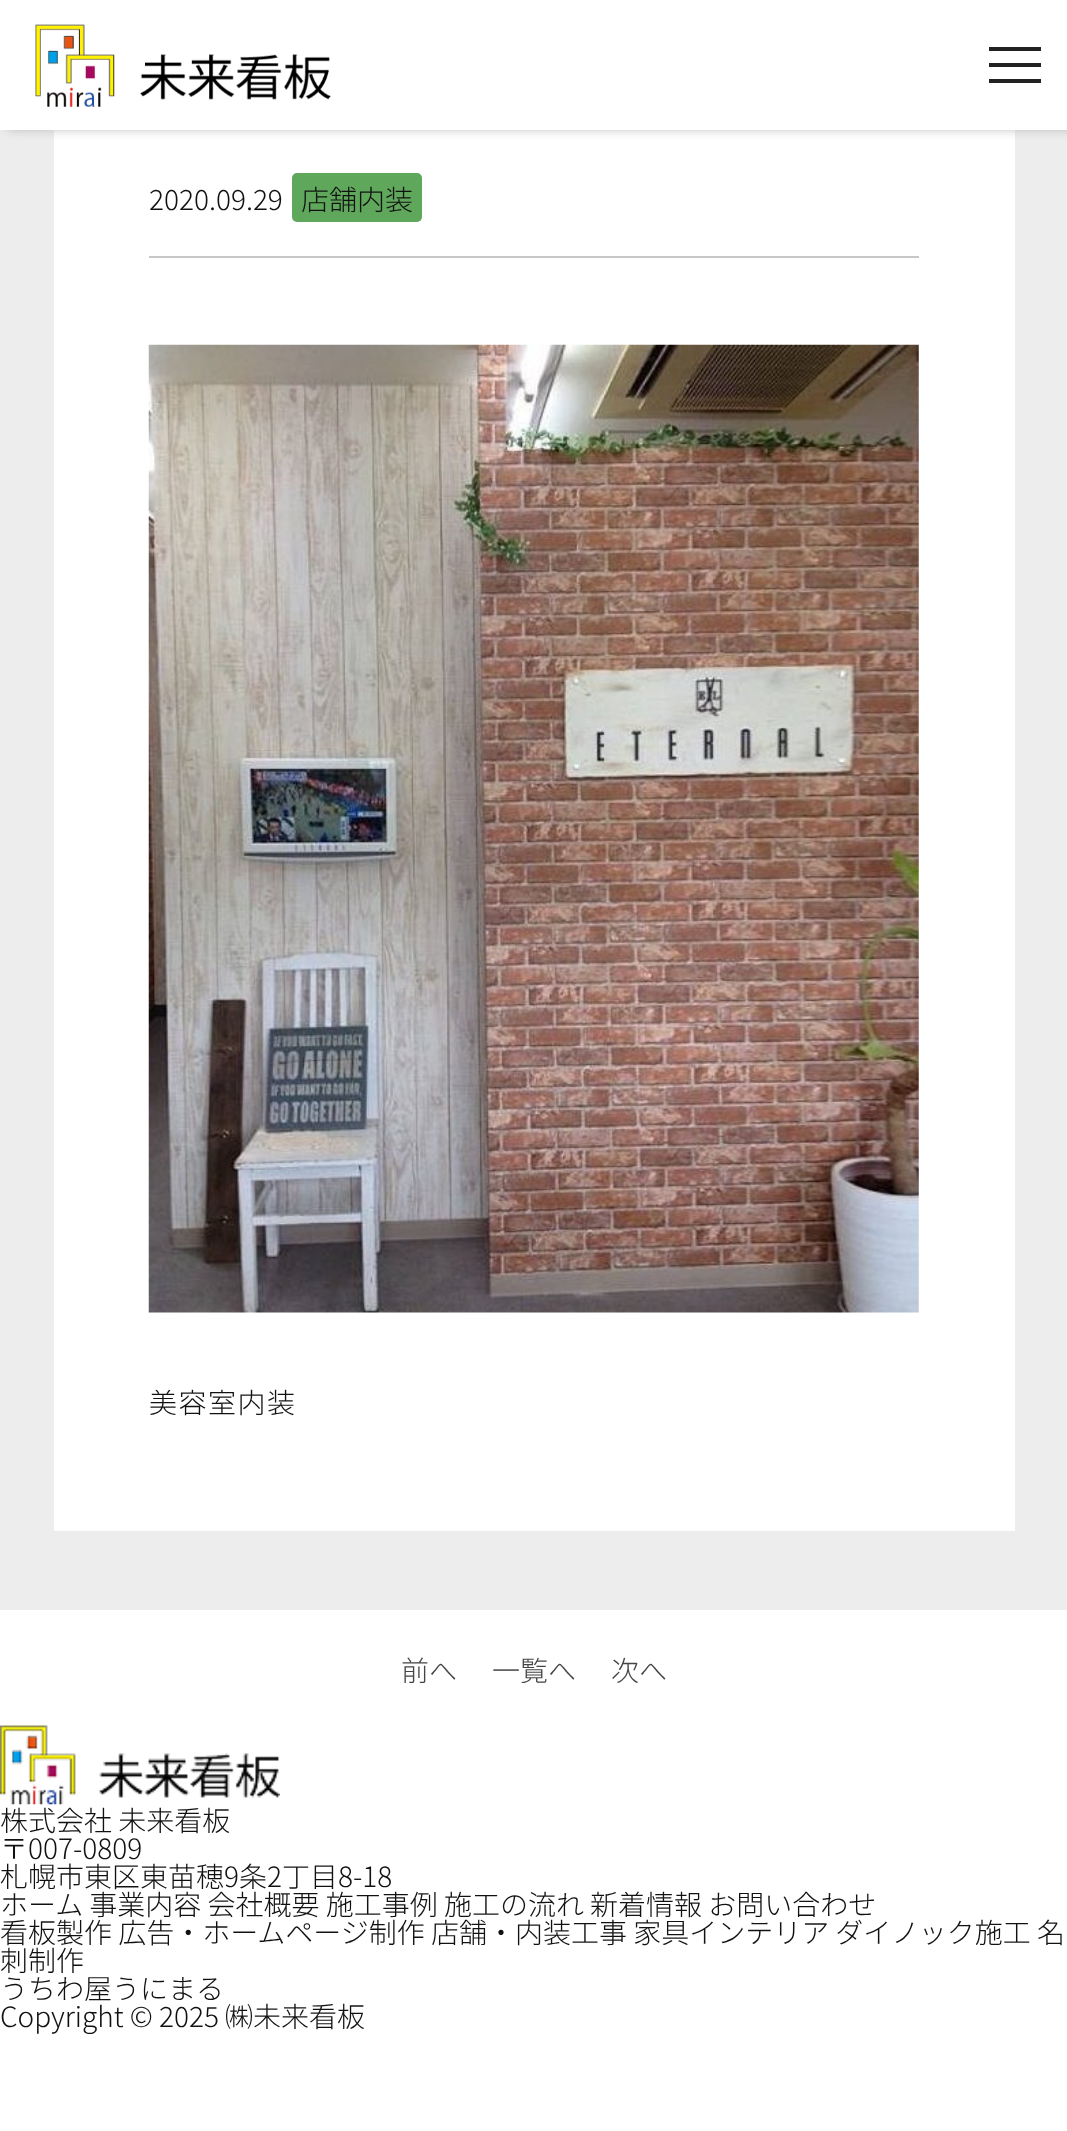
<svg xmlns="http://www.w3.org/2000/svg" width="1067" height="2131">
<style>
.a{font:100 28px Noto Sans JP;fill:#111}
.b{font:100 28px Noto Sans JP;letter-spacing:1.5px;fill:#111}
.c{font:100 28px Noto Sans JP;fill:#454545}
</style>
<rect width="100%" height="100%" fill="#fff"/>
<path fill="#ededed" d="M0 130h1067v1480H0z"/>
<path fill="#fff" d="M54 130h961v1401H54z"/>
<path fill="#aaa" filter="blur(6px)" d="M7 -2h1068v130H7z"/>
<path fill="#fff" d="M0 0h1067v130H0z"/>
<image href="1.png" x="35" y="24" width="296" height="83"/>
<path fill="#222" d="M989 47h52v4H989z"/>
<path fill="#222" d="M989 63h52v4H989z"/>
<path fill="#222" d="M989 79h52v4H989z"/>
<rect fill="#5fa75b" x="292" y="173" width="130" height="49" rx="5"/>
<path fill="#c7c7c7" d="M149 256h770v2H149z"/>
<image href="2.png" x="148" y="344" width="771" height="969"/>
<image href="3.png" x="0" y="1725" width="280" height="80"/>
<text class="a" x="149" y="210">2020.09.29</text>
<text class="a" x="301" y="210">店舗内装</text>
<text class="b" x="149" y="1413">美容室内装</text>
<text class="c" x="401" y="1681">前へ</text>
<text class="c" x="492" y="1681">一覧へ</text>
<text class="c" x="611" y="1681">次へ</text>
<text class="a" x="0" y="1831">株式会社 未来看板</text>
<text class="a" x="0" y="1859">〒007-0809</text>
<text class="a" x="0" y="1887">札幌市東区東苗穂9条2丁目8-18</text>
<text class="a" x="0" y="1915">ホーム 事業内容 会社概要 施工事例 施工の流れ 新着情報 お問い合わせ</text>
<text class="a" x="0" y="1943">看板製作 広告・ホームページ制作 店舗・内装工事 家具インテリア ダイノック施工 名</text>
<text class="a" x="0" y="1971">刺制作</text>
<text class="a" x="0" y="1999">うちわ屋うにまる</text>
<text class="a" x="0" y="2027">Copyright © 2025 ㈱未来看板</text>
</svg>
